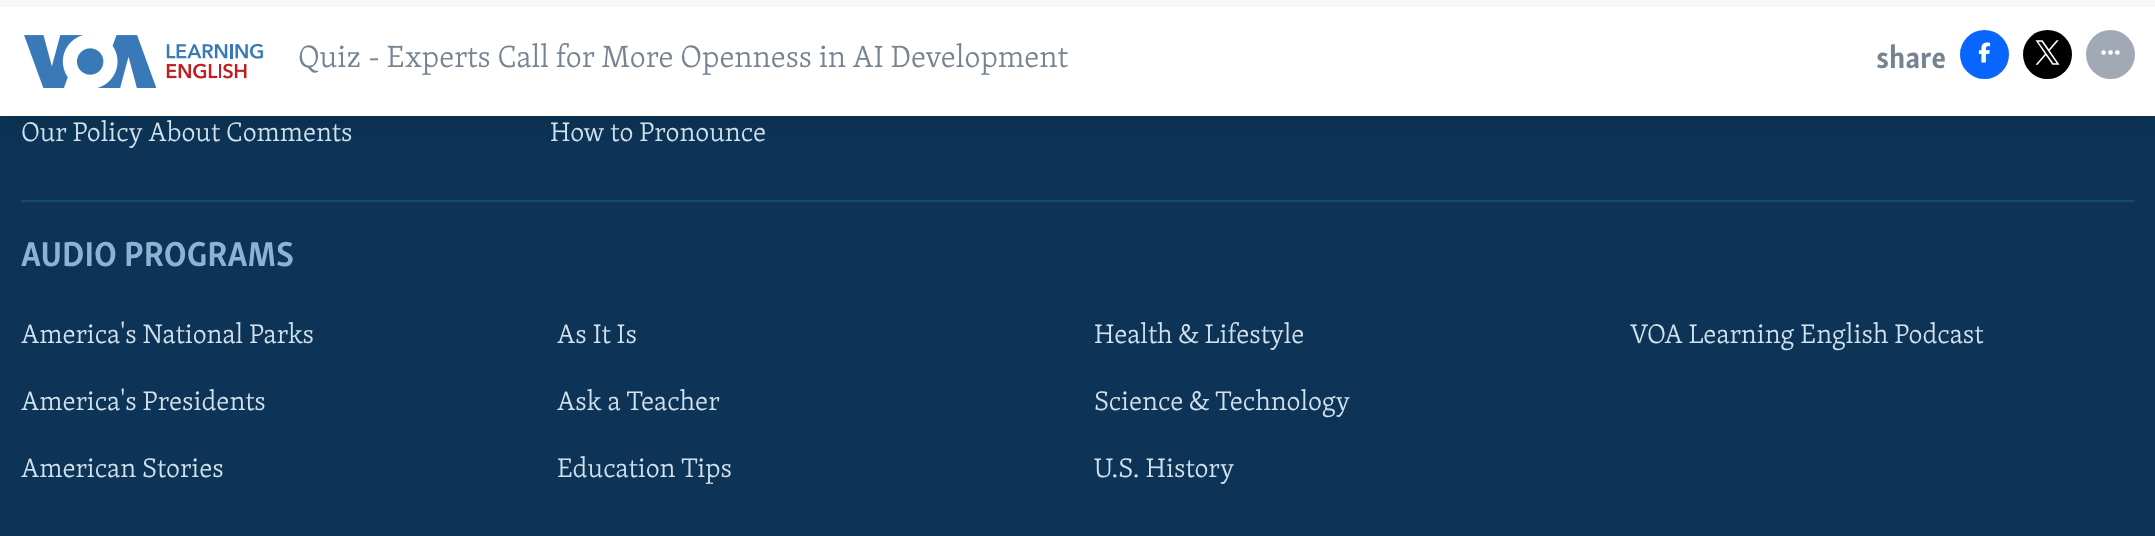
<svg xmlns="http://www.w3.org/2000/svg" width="2155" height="536">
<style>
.a{font:300 31.5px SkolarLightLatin;fill:#768492}
.b{font:bold 31.5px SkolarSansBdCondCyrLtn;fill:#768492}
.c{font:300 27.5px SkolarLightLatin;fill:#d1e1ee}
.d{font:bold 35.5px SkolarSansBdCondCyrLtn;fill:#8db3d4}
</style>
<rect width="100%" height="100%" fill="#0d3456"/>
<path fill="#0000001a" filter="blur(9px)" d="M0 9h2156v115H0z"/>
<path fill="#fff" d="M0 7h2155v109H0z"/>
<path fill="#f6f7f8" d="M0 0h2155v7H0z"/>
<image href="1.png" x="24" y="35" width="239" height="53"/>
<circle fill="#0866ff" cx="1984.5" cy="54.5" r="24.5"/>
<image href="2.png" x="1978" y="42" width="13" height="21"/>
<circle fill="#000" cx="2047.5" cy="54.5" r="24.5"/>
<image href="3.png" x="2035" y="40" width="25" height="25"/>
<circle fill="#a1aab4" cx="2110.5" cy="54.5" r="24.5"/>
<image href="4.png" x="2101" y="50" width="19" height="5"/>
<path fill="#134976" d="M21 200h2114v2H21z"/>
<text class="a" x="298" y="67">Quiz - Experts Call for More Openness in AI Development</text>
<text class="b" x="1876" y="68">share</text>
<text class="c" x="21" y="141">Our Policy About Comments</text>
<text class="c" x="550" y="141">How to Pronounce</text>
<text class="d" x="21" y="266">AUDIO PROGRAMS</text>
<text class="c" x="21" y="343">America's National Parks</text>
<text class="c" x="557" y="343">As It Is</text>
<text class="c" x="1094" y="343">Health &amp; Lifestyle</text>
<text class="c" x="1630" y="343">VOA Learning English Podcast</text>
<text class="c" x="21" y="410">America's Presidents</text>
<text class="c" x="557" y="410">Ask a Teacher</text>
<text class="c" x="1094" y="410">Science &amp; Technology</text>
<text class="c" x="21" y="477">American Stories</text>
<text class="c" x="557" y="477">Education Tips</text>
<text class="c" x="1094" y="477">U.S. History</text>
</svg>
